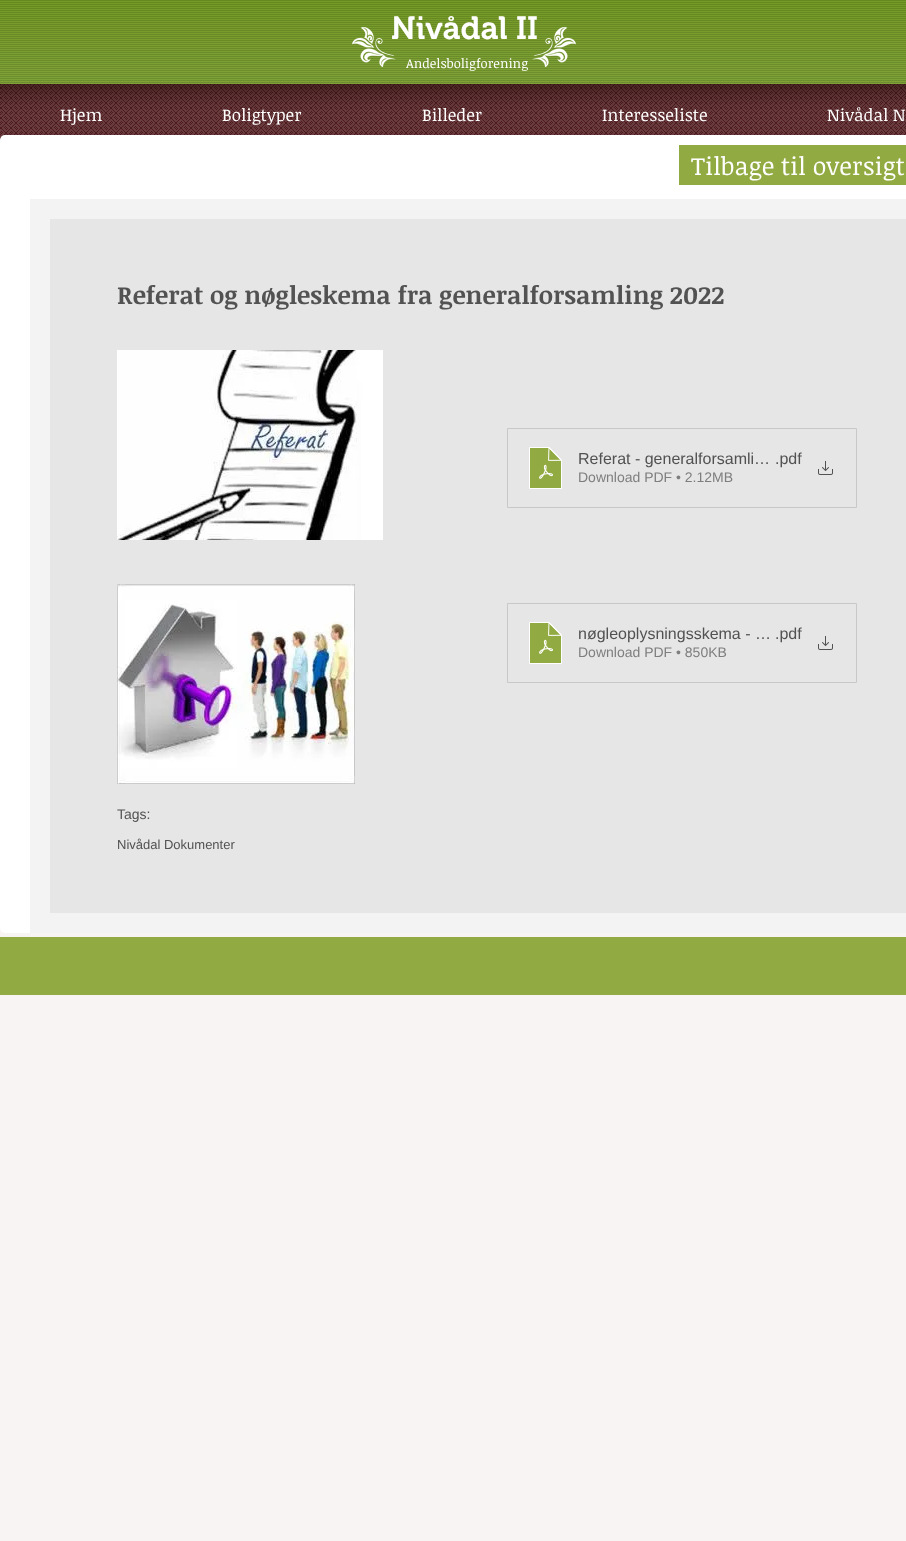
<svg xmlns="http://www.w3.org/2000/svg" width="906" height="1541">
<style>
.a{font:600 32px 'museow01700';fill:#fff}
.b{font:13px Noticia Text;fill:#fff}
.c{font:17px Noticia Text;fill:#fff}
.d{font:25px Noticia Text;fill:#fff}
.e{font:bold 25px Noticia Text;fill:#535252}
.f{font:16px Liberation Sans;fill:#535252}
.g{font:14px Liberation Sans;fill:#7f7e7e}
.h{font:14px Liberation Sans;fill:#535252}
.i{font:13px Liberation Sans;fill:#535252}
</style>
<defs>
<clipPath id="clip1"><path d="M679 145h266v40H679z"/></clipPath>
</defs>
<rect width="100%" height="100%" fill="#f8f4f3"/>
<image href="1.png" x="0" y="0" width="906" height="140"/>
<rect fill="#fff" y="135" width="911" height="798" rx="5"/>
<path fill="#92aa42" d="M679 145h216v40H679z"/>
<g clip-path="url(#clip1)">
<path fill="#92aa42" d="M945 165h-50v-50zm-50 0h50l-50 50z"/>
</g>
<path fill="#f3f3f3" d="M30 199h876v734H30z"/>
<path fill="#e6e6e6" d="M50 219h856v694H50z"/>
<image href="4.png" x="117" y="350" width="266" height="190"/>
<path fill="none" stroke="#c9c8c8" d="M507.5 428.5h349v79H507.5z"/>
<image href="5.png" x="529" y="447" width="33" height="42"/>
<image href="6.png" x="818" y="461" width="15" height="14"/>
<image href="7.png" x="117" y="584" width="238" height="200"/>
<path fill="none" stroke="#c9c8c8" d="M507.5 603.5h349v79H507.5z"/>
<image href="5.png" x="529" y="622" width="33" height="42"/>
<image href="6.png" x="818" y="636" width="15" height="14"/>
<path fill="#92aa42" d="M0 937h906v58H0z"/>
<text class="a" x="391" y="39">Nivådal II</text>
<image href="2.png" x="352" y="27" width="44" height="40"/>
<image href="3.png" x="532" y="27" width="44" height="40"/>
<text class="b" x="406" y="68">Andelsboligforening</text>
<text class="c" x="60" y="121">Hjem</text>
<text class="c" x="222" y="121">Boligtyper</text>
<text class="c" x="422" y="121">Billeder</text>
<text class="c" x="602" y="121">Interesseliste</text>
<text class="c" x="827" y="121">Nivådal N</text>
<text class="d" x="691" y="175">Tilbage til oversigt</text>
<text class="e" x="117" y="304">Referat og nøgleskema fra generalforsamling 2022</text>
<text class="f" x="578" y="464">Referat - generalforsamli…</text>
<text class="f" x="775" y="464">.pdf</text>
<text class="g" x="578" y="482">Download PDF • 2.12MB</text>
<text class="f" x="578" y="639">nøgleoplysningsskema - …</text>
<text class="f" x="775" y="639">.pdf</text>
<text class="g" x="578" y="657">Download PDF • 850KB</text>
<text class="h" x="117" y="819">Tags:</text>
<text class="i" x="117" y="849">Nivådal Dokumenter</text>
</svg>
